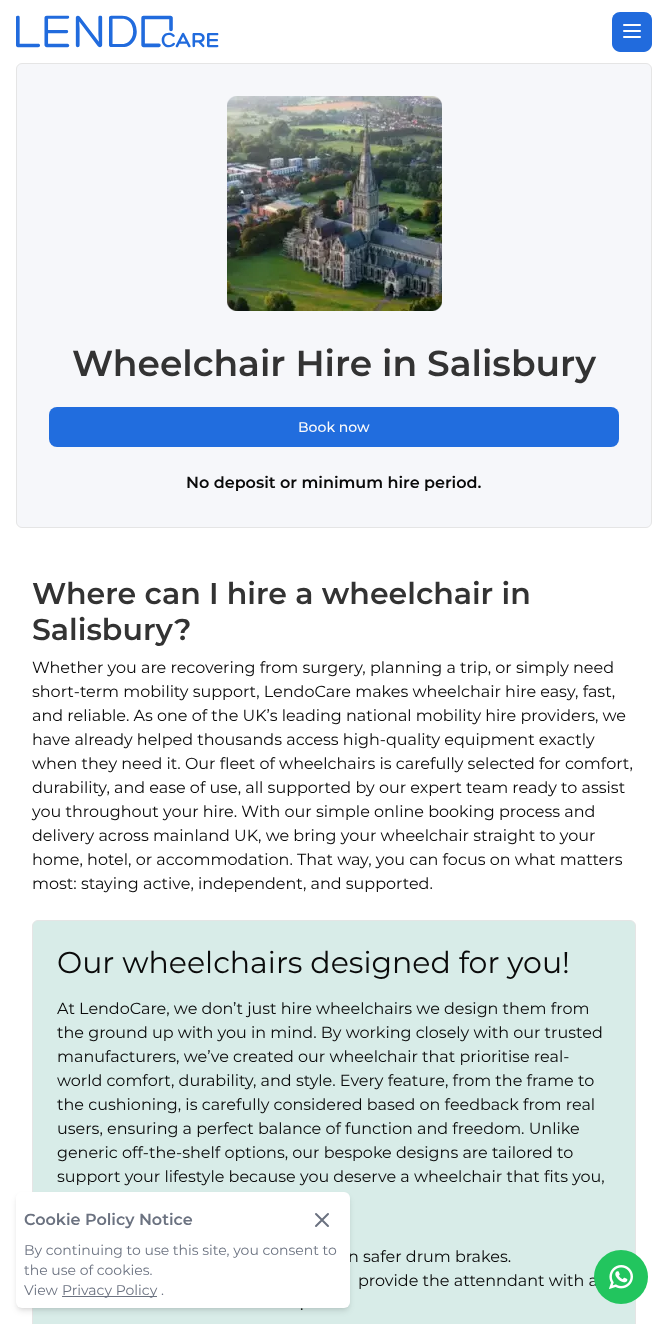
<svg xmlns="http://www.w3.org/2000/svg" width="668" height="1324">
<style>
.a{font:600 36px Montserrat;fill:#333}
.b{font:500 14px Montserrat;fill:#fafafa}
.c{font:600 16px Montserrat;fill:#0a0a0a}
.d{font:600 30px Montserrat;fill:#333}
.e{font:16px Montserrat;fill:#0a0a0a}
.f{font:30px Montserrat;fill:#0a0a0a}
.g{font:600 16px Montserrat;fill:#6b7280}
.h{font:14px Montserrat;fill:#6b7280}
</style>
<rect width="100%" height="100%" fill="#fff"/>
<image href="1.png" x="16" y="15" width="203" height="33"/>
<path fill="#216bdd" d="M644 52h-24c-4 0-8-4-8-8v-24c0-5 4-8 8-8h24c4 0 8 3 8 8v24c0 4-4 8-8 8z"/>
<image href="2.png" x="623" y="24" width="18" height="14"/>
<rect fill="#f6f7fa" stroke="#e5e5e5" x="16.5" y="63.5" width="635" height="464" rx="5.5"/>
<image href="3.png" x="227" y="96" width="215" height="215"/>
<rect fill="#216dde" x="49" y="407" width="570" height="40" rx="8"/>
<rect fill="#d8ece8" stroke="#e5e5e5" x="32.5" y="920.5" width="603" height="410" rx="5.5"/>
<rect fill="#0000001a" filter="blur(2px)" x="18" y="1196" width="330" height="112" rx="4"/>
<rect fill="#0000001a" filter="blur(3px)" x="17" y="1197" width="332" height="114" rx="5"/>
<text class="a" x="72" y="376">Wheelchair Hire in Salisbury</text>
<text class="b" x="298" y="432">Book now</text>
<text class="c" x="186" y="488">No deposit or minimum hire period.</text>
<text class="d" x="32" y="604">Where can I hire a wheelchair in</text>
<text class="d" x="32" y="640">Salisbury</text>
<text class="d" x="174" y="640">?</text>
<text class="e" x="32" y="673">Whether you are recovering from surgery, planning a trip, or simply need</text>
<text class="e" x="32" y="697">short-term mobility support, LendoCare makes wheelchair hire easy, fast,</text>
<text class="e" x="32" y="721">and reliable. As one of the UK’s leading national mobility hire providers, we</text>
<text class="e" x="32" y="745">have already helped thousands access high-quality equipment exactly</text>
<text class="e" x="32" y="769">when they need it. Our fleet of wheelchairs is carefully selected for comfort,</text>
<text class="e" x="32" y="793">durability, and ease of use, all supported by our expert team ready to assist</text>
<text class="e" x="32" y="817">you throughout your hire. With our simple online booking process and</text>
<text class="e" x="32" y="841">delivery across mainland UK, we bring your wheelchair straight to your</text>
<text class="e" x="32" y="865">home, hotel, or accommodation. That way, you can focus on what matters</text>
<text class="e" x="32" y="889">most: staying active, independent, and supported.</text>
<text class="f" x="57" y="973">Our wheelchairs designed for you!</text>
<text class="e" x="57" y="1014">At LendoCare, we don’t just hire wheelchairs we design them from</text>
<text class="e" x="57" y="1038">the ground up with you in mind. By working closely with our trusted</text>
<text class="e" x="57" y="1062">manufacturers, we’ve created our wheelchair that prioritise real-</text>
<text class="e" x="57" y="1086">world comfort, durability, and style. Every feature, from the frame to</text>
<text class="e" x="57" y="1110">the cushioning, is carefully considered based on feedback from real</text>
<text class="e" x="57" y="1134">users, ensuring a perfect balance of function and freedom. Unlike</text>
<text class="e" x="57" y="1158">generic off-the-shelf options, our bespoke designs are tailored to</text>
<text class="e" x="57" y="1182">support your lifestyle because you deserve a wheelchair that fits you,</text>
<text class="e" x="348" y="1262">n safer drum brakes.</text>
<text class="e" x="358" y="1286">provide the attenndant with a</text>
<text class="e" x="300" y="1310">.</text>
<circle fill="#22c55e" cx="621" cy="1277" r="27"/>
<image href="4.png" x="609" y="1265" width="24" height="24"/>
<rect fill="#fff" x="16" y="1192" width="334" height="116" rx="6"/>
<text class="g" x="24" y="1225">Cookie Policy Notice</text>
<path fill="none" stroke="#6b7280" stroke-width="2" stroke-linecap="round" stroke-linejoin="round" d="M328 1214l-12 12m0-12l12 12"/>
<text class="h" x="24" y="1255">By continuing to use this site, you consent to</text>
<text class="h" x="24" y="1275">the use of cookies.</text>
<text class="h" x="24" y="1295">View</text>
<path fill="#6b7280" d="M62 1296h95v1H62z"/>
<text class="h" x="62" y="1295">Privacy Policy .</text>
</svg>
